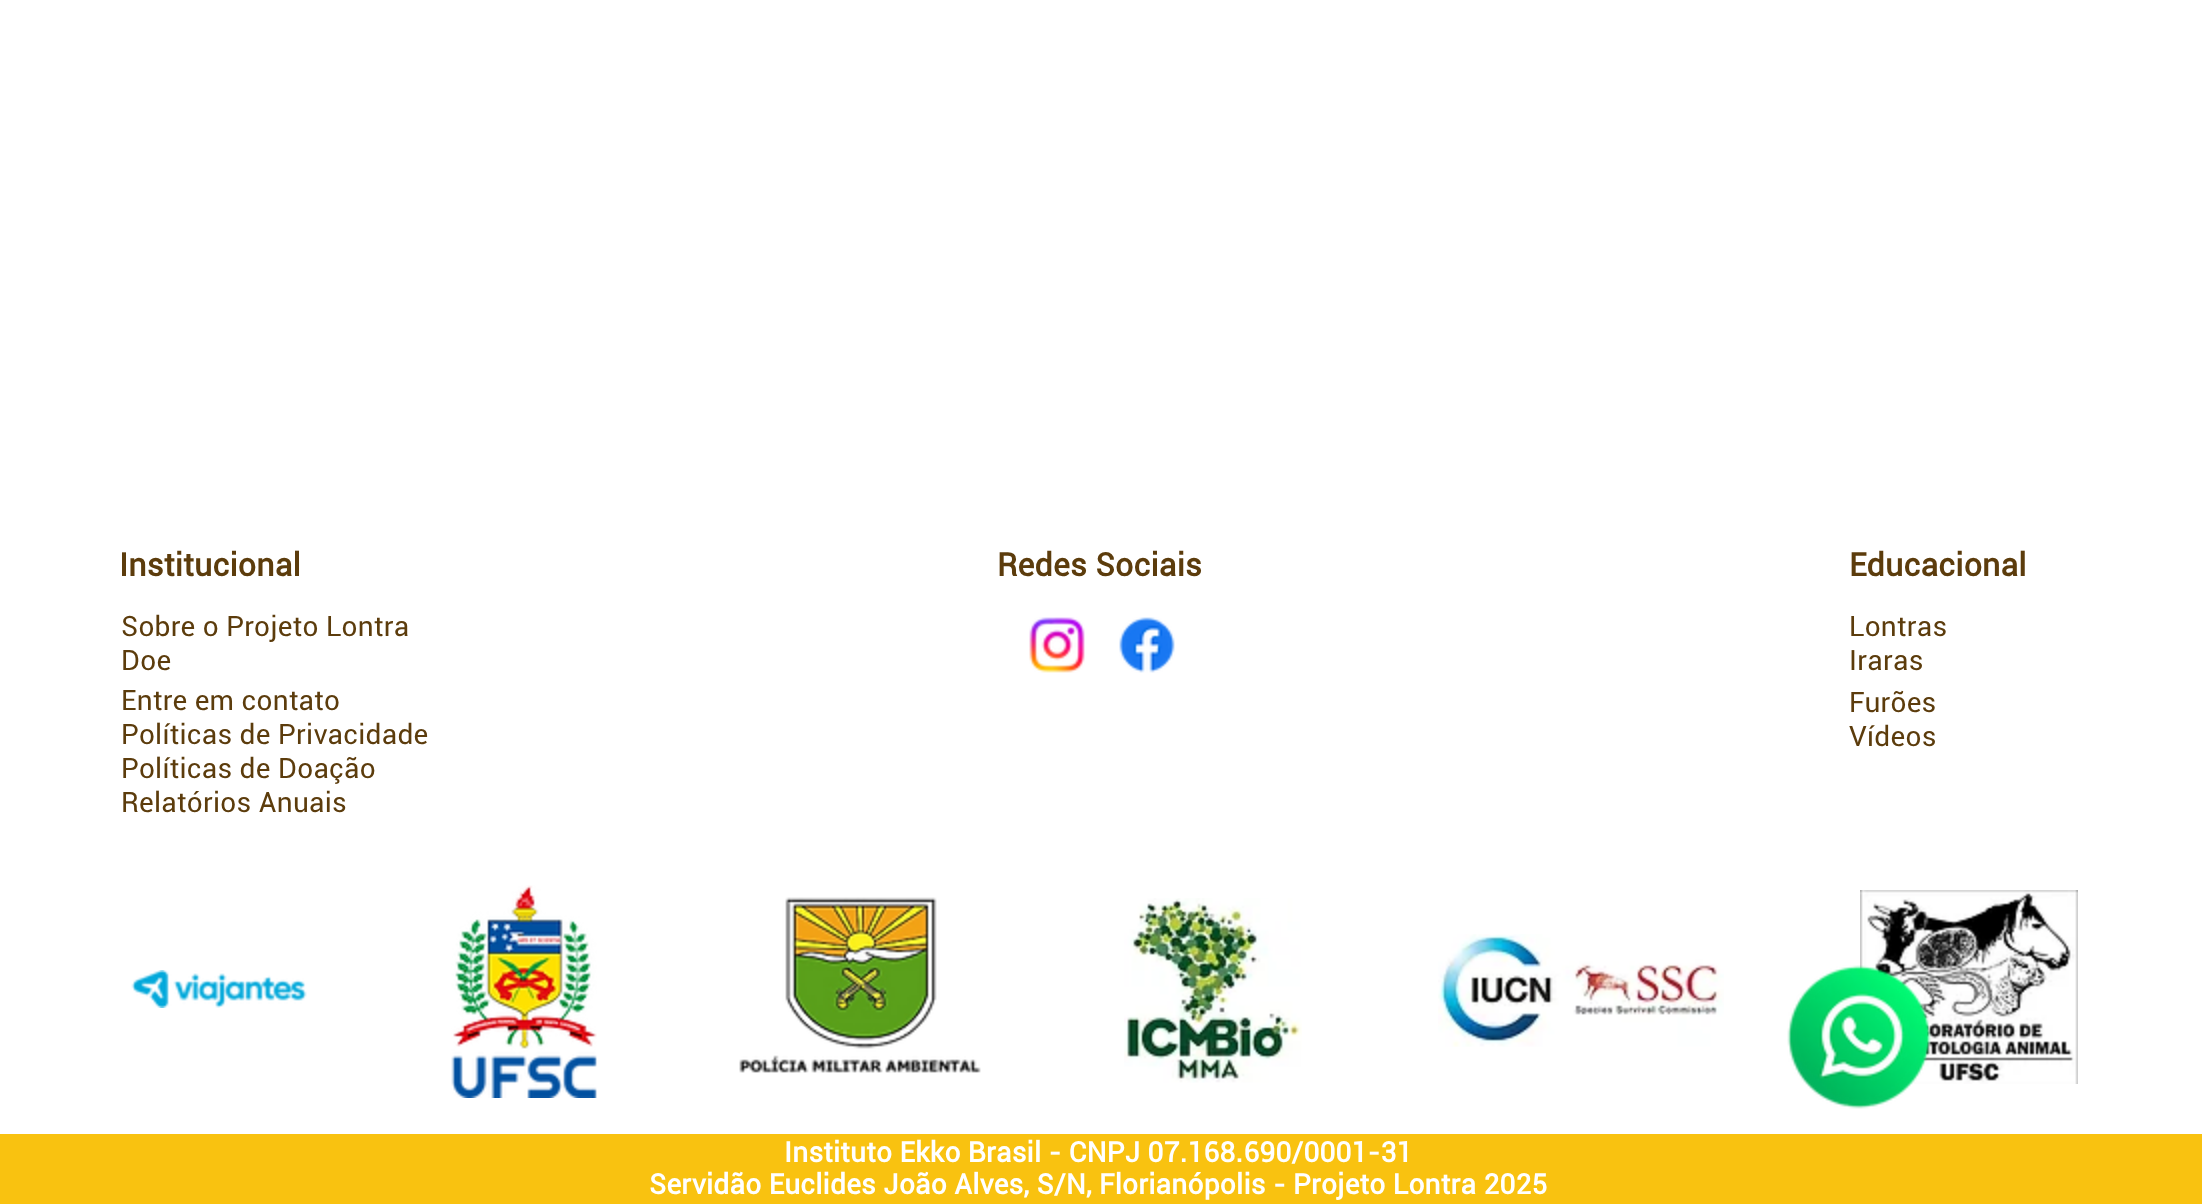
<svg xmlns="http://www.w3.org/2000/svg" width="2202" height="1204">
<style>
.a{font:bold 32px Roboto;letter-spacing:0.25px;fill:#5c3c0c}
.b{font:28px Roboto;letter-spacing:0.28px;fill:#5c3c0c}
.c{font:bold 28px Roboto;letter-spacing:0.28px;fill:#fff}
</style>
<rect width="100%" height="100%" fill="#fff"/>
<image href="1.png" x="1029" y="617" width="56" height="56"/>
<image href="2.png" x="1119" y="617" width="56" height="56"/>
<image href="3.png" x="131" y="970" width="176" height="38"/>
<image href="4.png" x="451" y="885" width="146" height="213"/>
<image href="5.png" x="739" y="897" width="242" height="176"/>
<image href="6.png" x="1124" y="898" width="178" height="185"/>
<image href="7.png" x="1438" y="934" width="286" height="113"/>
<image href="8.png" x="1860" y="890" width="218" height="194"/>
<path fill="#f9c210" d="M0 1134h2202v70H0z"/>
<image href="9.png" x="1787" y="965" width="144" height="144"/>
<text class="a" x="119" y="576">Institucional</text>
<text class="a" x="997" y="576">Redes Sociais</text>
<text class="a" x="1849" y="576">Educacional</text>
<text class="b" x="121" y="636">Sobre o Projeto Lontra</text>
<text class="b" x="1849" y="636">Lontras</text>
<text class="b" x="121" y="670">Doe</text>
<text class="b" x="1849" y="670">Iraras</text>
<text class="b" x="121" y="710">Entre em contato</text>
<text class="b" x="1849" y="712">Furões</text>
<text class="b" x="121" y="744">Políticas de Privacidade</text>
<text class="b" x="1849" y="746">Vídeos</text>
<text class="b" x="121" y="778">Políticas de Doação</text>
<text class="b" x="121" y="812">Relatórios Anuais</text>
<text class="c" x="784" y="1162">Instituto Ekko Brasil - CNPJ 07.168.690/0001-31</text>
<text class="c" x="649" y="1194">Servidão Euclides João Alves, S/N, Florianópolis - Projeto Lontra 2025</text>
</svg>
